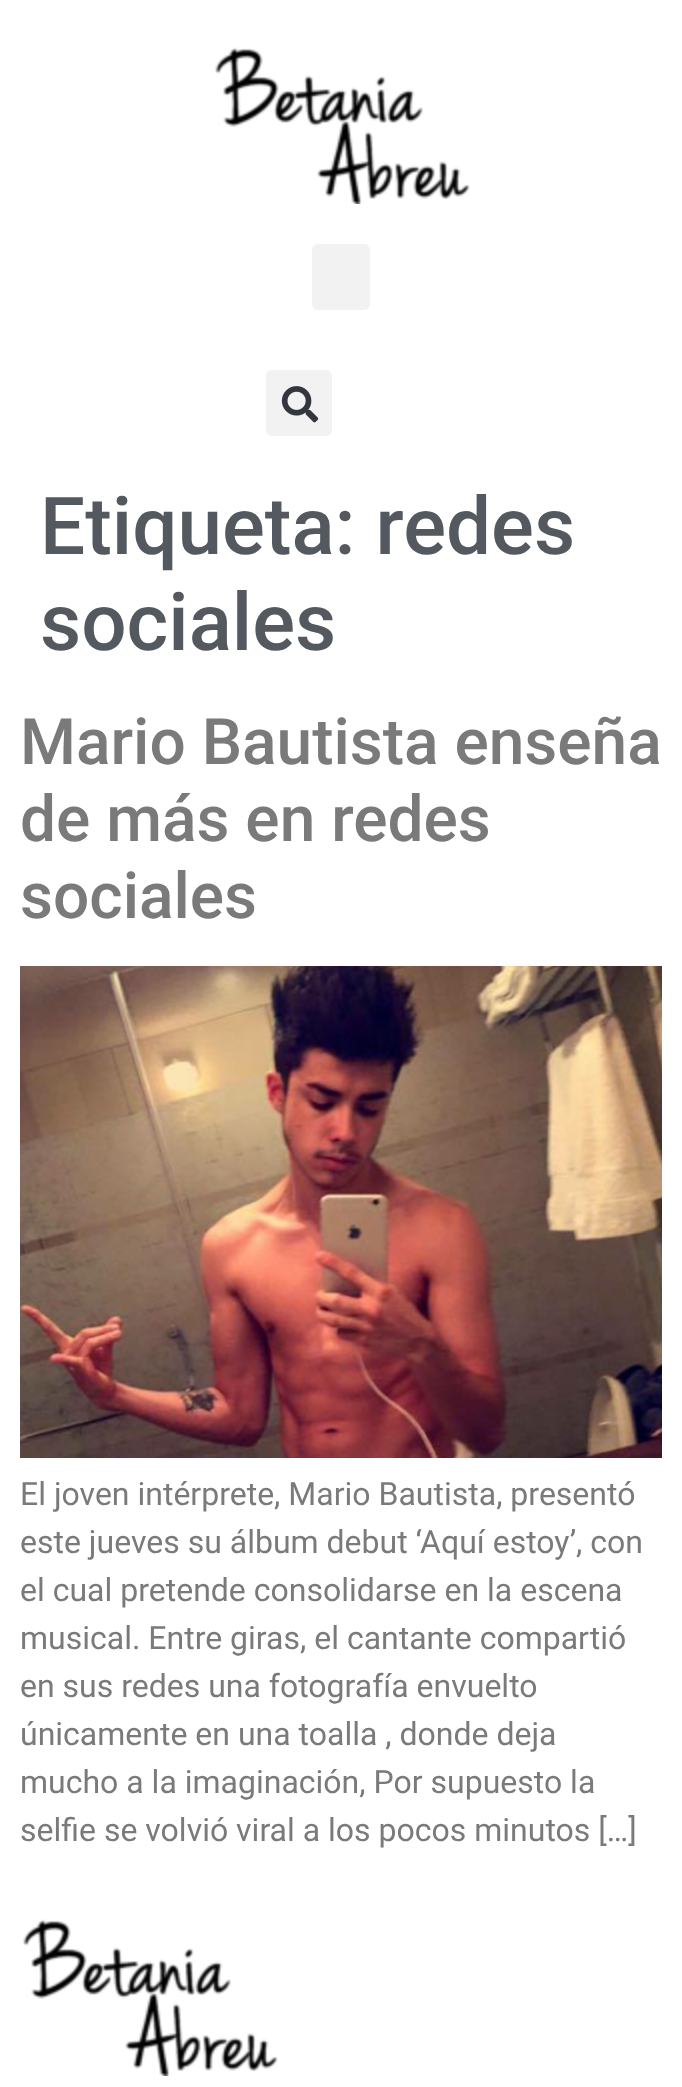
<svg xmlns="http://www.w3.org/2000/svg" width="682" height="2087">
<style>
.a{font:500 80px Roboto;fill:#54595f}
.b{font:500 64px Roboto;fill:#7a7a7a}
.c{font:32px Roboto;fill:#7a7a7a}
</style>
<rect width="100%" height="100%" fill="#fff"/>
<image href="1.png" x="215" y="47" width="255" height="157"/>
<rect fill="#f2f2f2" x="312" y="244" width="58" height="66" rx="6"/>
<rect fill="#f2f2f2" x="266" y="370" width="66" height="66" rx="6"/>
<image href="2.png" x="281" y="386" width="38" height="37"/>
<image href="3.png" x="20" y="966" width="642" height="492"/>
<image href="1.png" x="23" y="1919" width="255" height="157"/>
<text class="a" x="40" y="554">Etiqueta: redes</text>
<text class="a" x="40" y="650">sociales</text>
<text class="b" x="20" y="764">Mario Bautista enseña</text>
<text class="b" x="20" y="841">de más en redes</text>
<text class="b" x="20" y="918">sociales</text>
<text class="c" x="20" y="1505">El joven intérprete, Mario Bautista, presentó</text>
<text class="c" x="20" y="1553">este jueves su álbum debut ‘Aquí estoy’, con</text>
<text class="c" x="20" y="1601">el cual pretende consolidarse en la escena</text>
<text class="c" x="20" y="1649">musical. Entre giras, el cantante compartió</text>
<text class="c" x="20" y="1697">en sus redes una fotografía envuelto</text>
<text class="c" x="20" y="1745">únicamente en una toalla , donde deja</text>
<text class="c" x="20" y="1793">mucho a la imaginación, Por supuesto la</text>
<text class="c" x="20" y="1841">selfie se volvió viral a los pocos minutos […]</text>
</svg>
